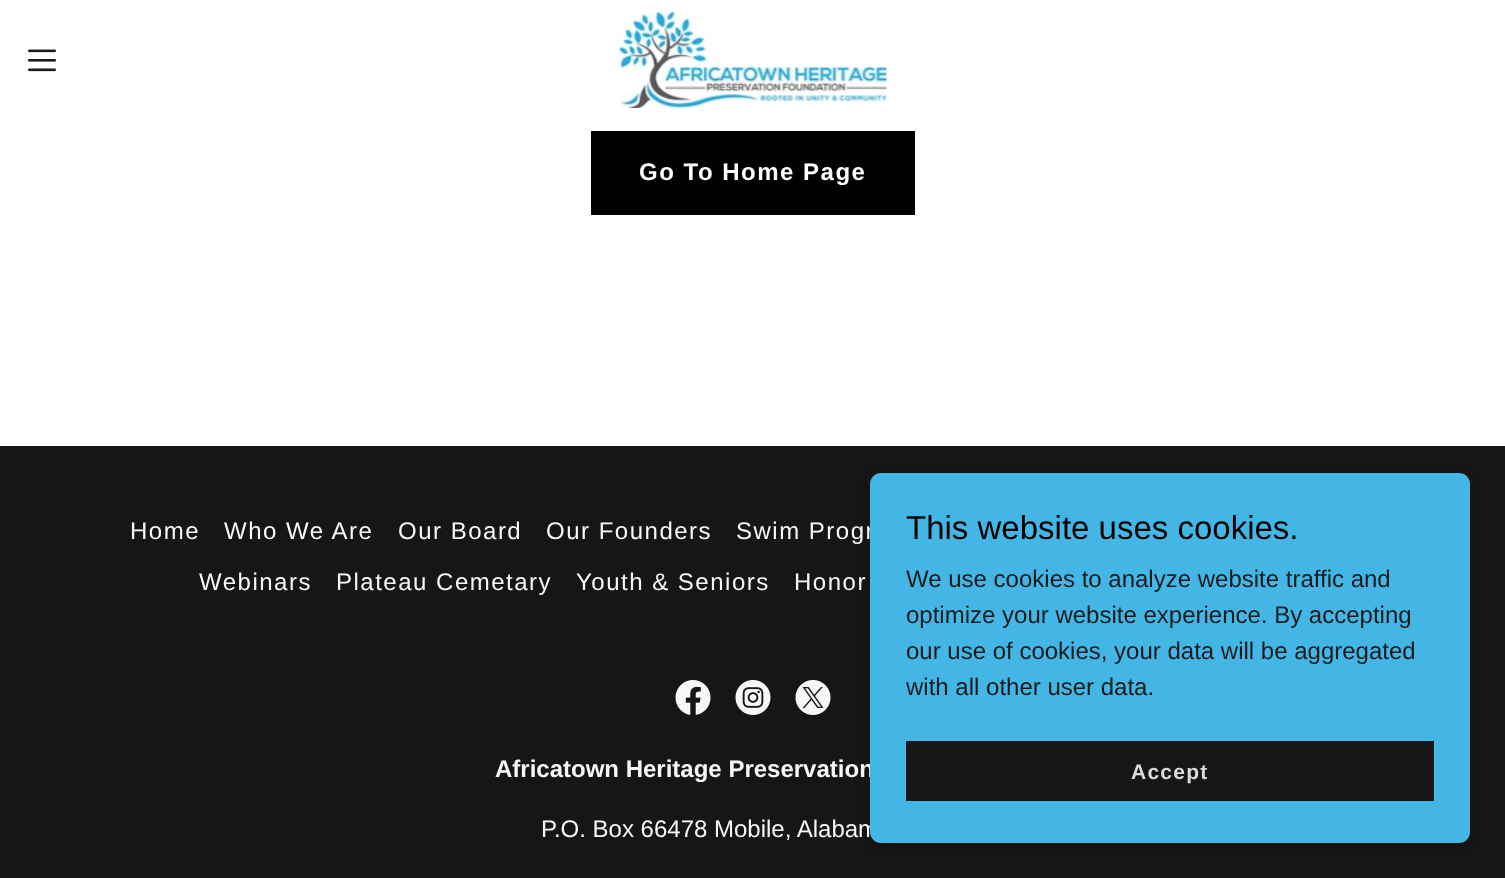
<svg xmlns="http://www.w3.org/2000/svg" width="1505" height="878">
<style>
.a{font:bold 24px Liberation Sans;letter-spacing:1.5px;fill:#fff}
.b{font:24px Liberation Sans;letter-spacing:1.5px;fill:#f7f7f7}
.c{font:bold 24px Liberation Sans;fill:#f7f7f7}
.d{font:24px Liberation Sans;fill:#f7f7f7}
.e{font:33px Liberation Sans;fill:#000}
.f{font:24px Liberation Sans;fill:#191b1d}
.g{font:bold 21px Liberation Sans;letter-spacing:1.25px;fill:#dbdbdb}
</style>
<rect width="100%" height="100%" fill="#161616"/>
<path fill="#fff" d="M0 0h1505v446H0z"/>
<image href="1.png" x="28" y="49" width="28" height="23"/>
<image href="2.png" x="619" y="12" width="268" height="96"/>
<path fill="#000" d="M591 131h324v84H591z"/>
<image href="3.png" x="675" y="680" width="36" height="35"/>
<image href="4.png" x="735" y="680" width="36" height="35"/>
<image href="5.png" x="795" y="680" width="36" height="35"/>
<rect fill="#0000004d" filter="blur(4.5px)" x="870" y="476" width="600" height="370" rx="11"/>
<text class="a" x="639" y="180">Go To Home Page</text>
<text class="b" x="130" y="539">Home</text>
<text class="b" x="224" y="539">Who We Are</text>
<text class="b" x="398" y="539">Our Board</text>
<text class="b" x="546" y="539">Our Founders</text>
<text class="b" x="736" y="539">Swim Progr</text>
<text class="b" x="199" y="590">Webinars</text>
<text class="b" x="336" y="590">Plateau Cemetary</text>
<text class="b" x="576" y="590">Youth &amp; Seniors</text>
<text class="b" x="794" y="590">Honor</text>
<text class="c" x="495" y="777">Africatown Heritage Preservation</text>
<text class="d" x="541" y="837">P.O. Box 66478 Mobile, Alabam</text>
<rect fill="#44b6e5" x="870" y="473" width="600" height="370" rx="11"/>
<text class="e" x="906" y="539">This website uses cookies.</text>
<text class="f" x="906" y="587">We use cookies to analyze website traffic and</text>
<text class="f" x="906" y="623">optimize your website experience. By accepting</text>
<text class="f" x="906" y="659">our use of cookies, your data will be aggregated</text>
<text class="f" x="906" y="695">with all other user data.</text>
<path fill="#161616" d="M906 741h528v60H906z"/>
<text class="g" x="1131" y="779">Accept</text>
</svg>
